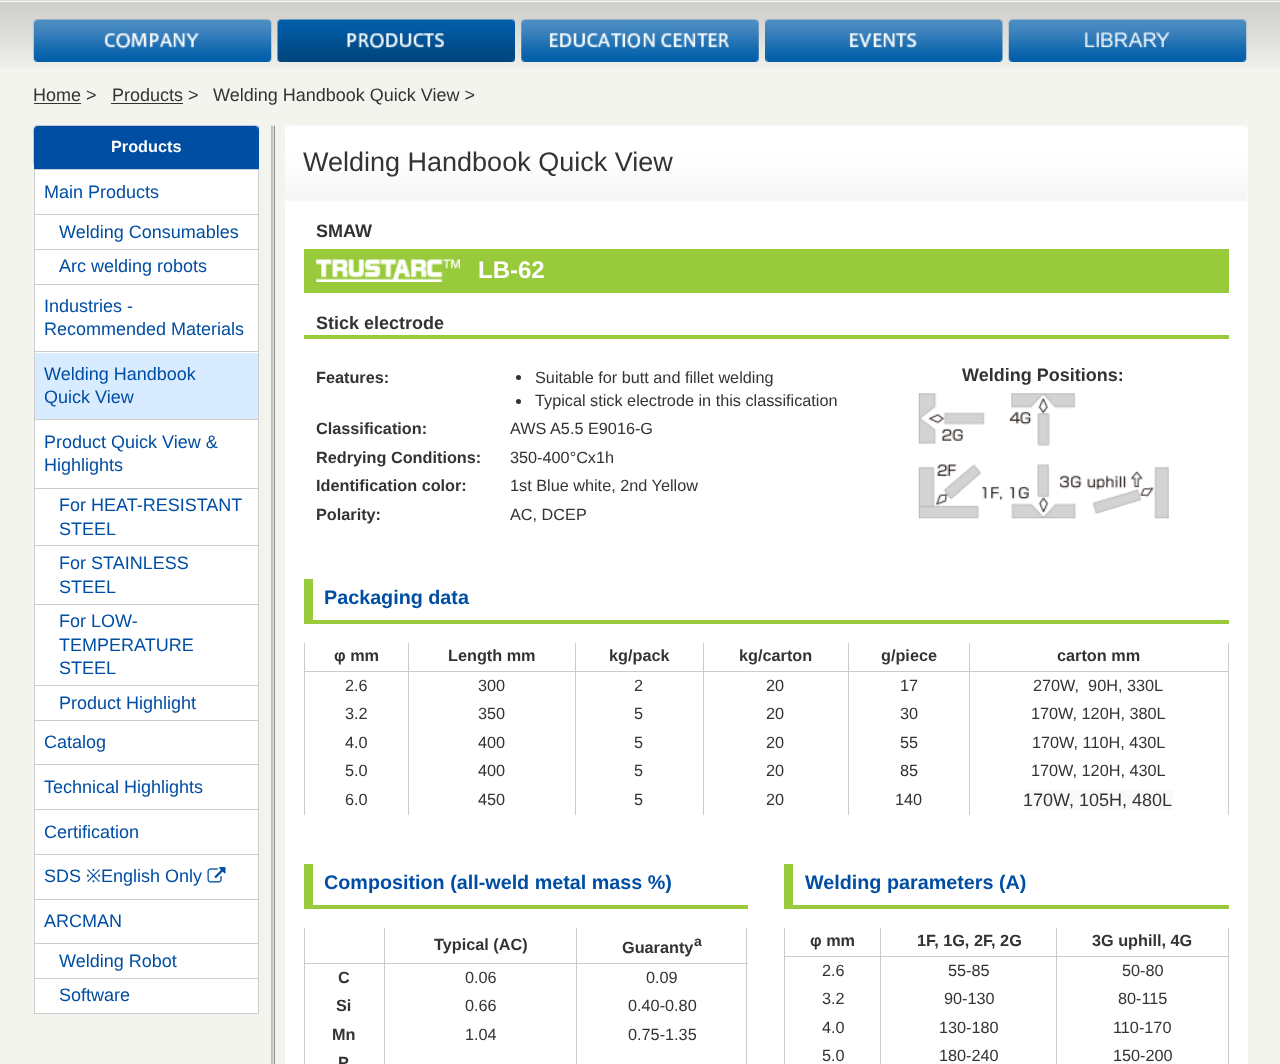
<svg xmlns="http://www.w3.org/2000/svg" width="1280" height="1064">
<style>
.a{font:18px Liberation Sans;fill:#333}
.b{font:bold 16.25px Liberation Sans;fill:#fff}
.c{font:18px Liberation Sans;fill:#004ea4}
.d{font:18px Noto Sans;fill:#004ea4}
.e{font:27px Liberation Sans;fill:#333}
.f{font:bold 18px Liberation Sans;fill:#333}
.g{font:bold 24px Liberation Sans;fill:#fff}
.h{font:bold 16.25px Liberation Sans;fill:#333}
.i{font:16.25px Liberation Sans;fill:#333}
.j{font:bold 19.75px Liberation Sans;fill:#004ea4}
.k{font:bold 14px Liberation Sans;fill:#333}
</style>
<rect width="100%" height="100%" fill="#f4f4ef"/>
<image href="1.png" x="0" y="0" width="1280" height="69"/>
<image href="2.png" x="33" y="19" width="239" height="43"/>
<image href="3.png" x="277" y="19" width="238" height="43"/>
<image href="4.png" x="521" y="19" width="238" height="43"/>
<image href="5.png" x="765" y="19" width="238" height="43"/>
<image href="6.png" x="1008" y="19" width="239" height="43"/>
<path fill="#333" d="M34 103h47v1H34z"/>
<path fill="#333" d="M111 103h72v1H111z"/>
<path fill="#004ea4" d="M34 126h225v43H34z"/>
<image href="7.png" x="33" y="125" width="226" height="40"/>
<path fill="#ccc" d="M34 169h225v1H34z"/>
<path fill="#ccc" d="M258 169h1v845H258z"/>
<path fill="#ccc" d="M34 169h1v845H34z"/>
<path fill="#fff" d="M35 170h223v44H35z"/>
<path fill="#ccc" d="M35 214h223v1H35z"/>
<path fill="#fff" d="M35 215h223v34H35z"/>
<path fill="#ccc" d="M35 249h223v1H35z"/>
<path fill="#fff" d="M35 250h223v34H35z"/>
<path fill="#ccc" d="M35 284h223v1H35z"/>
<path fill="#fff" d="M35 285h223v68H35z"/>
<path fill="#ccc" d="M35 351h223v1H35z"/>
<path fill="#d9ebff" d="M35 353h223v66H35z"/>
<path fill="#ccc" d="M35 419h223v1H35z"/>
<path fill="#fff" d="M35 420h223v68H35z"/>
<path fill="#ccc" d="M35 488h223v1H35z"/>
<path fill="#fff" d="M35 489h223v56H35z"/>
<path fill="#ccc" d="M35 545h223v1H35z"/>
<path fill="#fff" d="M35 546h223v58H35z"/>
<path fill="#ccc" d="M35 604h223v1H35z"/>
<path fill="#fff" d="M35 605h223v80H35z"/>
<path fill="#ccc" d="M35 685h223v1H35z"/>
<path fill="#fff" d="M35 686h223v34H35z"/>
<path fill="#ccc" d="M35 720h223v1H35z"/>
<path fill="#fff" d="M35 721h223v43H35z"/>
<path fill="#ccc" d="M35 764h223v1H35z"/>
<path fill="#fff" d="M35 765h223v44H35z"/>
<path fill="#ccc" d="M35 809h223v1H35z"/>
<path fill="#fff" d="M35 810h223v44H35z"/>
<path fill="#ccc" d="M35 854h223v1H35z"/>
<path fill="#fff" d="M35 855h223v44H35z"/>
<path fill="#ccc" d="M35 899h223v1H35z"/>
<image href="8.png" x="207" y="867" width="19" height="16"/>
<path fill="#fff" d="M35 900h223v43H35z"/>
<path fill="#ccc" d="M35 943h223v1H35z"/>
<path fill="#fff" d="M35 944h223v34H35z"/>
<path fill="#ccc" d="M35 978h223v1H35z"/>
<path fill="#fff" d="M35 979h223v34H35z"/>
<path fill="#ccc" d="M35 1013h223v1H35z"/>
<image href="9.png" x="271" y="125" width="4" height="939"/>
<path fill="#fff" d="M285 126h963v938H285z"/>
<image href="10.png" x="285" y="125" width="963" height="76"/>
<path fill="#99ca3c" d="M304 249h925v44H304z"/>
<image href="11.png" x="316" y="259" width="144" height="23"/>
<path fill="#99ca3c" d="M304 335h925v4H304z"/>
<circle fill="#333" cx="518.5" cy="377.5" r="2.5"/>
<circle fill="#333" cx="518.5" cy="401.5" r="2.5"/>
<image href="12.png" x="918" y="393" width="251" height="126"/>
<path fill="#99ca3c" d="M313 620h916v4H313z"/>
<path fill="#99ca3c" d="M304 579h9v45H304z"/>
<path fill="#ccc" d="M304 671h925v1H304z"/>
<path fill="#ccc" d="M304 643h1v172H304z"/>
<path fill="#ccc" d="M408 643h1v172H408z"/>
<path fill="#ccc" d="M575 643h1v172H575z"/>
<path fill="#ccc" d="M703 643h1v172H703z"/>
<path fill="#ccc" d="M848 643h1v172H848z"/>
<path fill="#ccc" d="M1228 643h1v172H1228z"/>
<path fill="#ccc" d="M969 643h1v172H969z"/>
<path fill="#f9f9f9" d="M1024 790h149v20H1024z"/>
<path fill="#99ca3c" d="M313 905h435v4H313z"/>
<path fill="#99ca3c" d="M304 864h9v45H304z"/>
<path fill="#ccc" d="M304 963h444v1H304z"/>
<path fill="#ccc" d="M304 928h1v136H304z"/>
<path fill="#ccc" d="M384 928h1v136H384z"/>
<path fill="#ccc" d="M746 928h1v136H746z"/>
<path fill="#ccc" d="M576 928h1v136H576z"/>
<path fill="#99ca3c" d="M793 905h436v4H793z"/>
<path fill="#99ca3c" d="M784 864h9v45H784z"/>
<path fill="#ccc" d="M784 956h445v1H784z"/>
<path fill="#ccc" d="M784 928h1v136H784z"/>
<path fill="#ccc" d="M880 928h1v136H880z"/>
<path fill="#ccc" d="M1228 928h1v136H1228z"/>
<path fill="#ccc" d="M1056 928h1v136H1056z"/>
<text class="a" x="33" y="101">Home &gt;</text>
<text class="a" x="112" y="101">Products &gt;</text>
<text class="a" x="213" y="101">Welding Handbook Quick View &gt;</text>
<text class="b" x="111" y="152">Products</text>
<text class="c" x="44" y="198">Main Products</text>
<text class="c" x="59" y="238">Welding Consumables</text>
<text class="c" x="59" y="272">Arc welding robots</text>
<text class="c" x="44" y="312">Industries -</text>
<text class="c" x="44" y="335">Recommended Materials</text>
<text class="c" x="44" y="380">Welding Handbook</text>
<text class="c" x="44" y="403">Quick View</text>
<text class="c" x="44" y="448">Product Quick View &amp;</text>
<text class="c" x="44" y="471">Highlights</text>
<text class="c" x="59" y="511">For HEAT-RESISTANT</text>
<text class="c" x="59" y="535">STEEL</text>
<text class="c" x="59" y="569">For STAINLESS</text>
<text class="c" x="59" y="593">STEEL</text>
<text class="c" x="59" y="627">For LOW-</text>
<text class="c" x="59" y="651">TEMPERATURE</text>
<text class="c" x="59" y="674">STEEL</text>
<text class="c" x="59" y="709">Product Highlight</text>
<text class="c" x="44" y="748">Catalog</text>
<text class="c" x="44" y="793">Technical Highlights</text>
<text class="c" x="44" y="838">Certification</text>
<text class="c" x="44" y="882">SDS</text>
<text class="d" x="86" y="882">※</text>
<text class="c" x="101" y="882">English Only</text>
<text class="c" x="44" y="927">ARCMAN</text>
<text class="c" x="59" y="967">Welding Robot</text>
<text class="c" x="59" y="1001">Software</text>
<text class="e" x="303" y="171">Welding Handbook Quick View</text>
<text class="f" x="316" y="237">SMAW</text>
<text class="g" x="478" y="278">LB-62</text>
<text class="f" x="316" y="329">Stick electrode</text>
<text class="h" x="316" y="383">Features:</text>
<text class="i" x="535" y="383">Suitable for butt and fillet welding</text>
<text class="i" x="535" y="406">Typical stick electrode in this classification</text>
<text class="h" x="316" y="434">Classification:</text>
<text class="i" x="510" y="434">AWS A5.5 E9016-G</text>
<text class="h" x="316" y="463">Redrying Conditions:</text>
<text class="i" x="510" y="463">350-400°Cx1h</text>
<text class="h" x="316" y="491">Identification color:</text>
<text class="i" x="510" y="491">1st Blue white, 2nd Yellow</text>
<text class="h" x="316" y="520">Polarity:</text>
<text class="i" x="510" y="520">AC, DCEP</text>
<text class="f" x="962" y="381">Welding Positions:</text>
<text class="j" x="324" y="604">Packaging data</text>
<text class="h" x="334" y="661">φ mm</text>
<text class="h" x="448" y="661">Length mm</text>
<text class="h" x="609" y="661">kg/pack</text>
<text class="h" x="739" y="661">kg/carton</text>
<text class="h" x="881" y="661">g/piece</text>
<text class="h" x="1057" y="661">carton mm</text>
<text class="i" x="345" y="691">2.6</text>
<text class="i" x="478" y="691">300</text>
<text class="i" x="634" y="691">2</text>
<text class="i" x="766" y="691">20</text>
<text class="i" x="900" y="691">17</text>
<text class="i" xml:space="preserve" x="1033" y="691">270W,  90H, 330L</text>
<text class="i" x="345" y="719">3.2</text>
<text class="i" x="478" y="719">350</text>
<text class="i" x="634" y="719">5</text>
<text class="i" x="766" y="719">20</text>
<text class="i" x="900" y="719">30</text>
<text class="i" x="1031" y="719">170W, 120H, 380L</text>
<text class="i" x="345" y="748">4.0</text>
<text class="i" x="478" y="748">400</text>
<text class="i" x="634" y="748">5</text>
<text class="i" x="766" y="748">20</text>
<text class="i" x="900" y="748">55</text>
<text class="i" x="1032" y="748">170W, 110H, 430L</text>
<text class="i" x="345" y="776">5.0</text>
<text class="i" x="478" y="776">400</text>
<text class="i" x="634" y="776">5</text>
<text class="i" x="766" y="776">20</text>
<text class="i" x="900" y="776">85</text>
<text class="i" x="1031" y="776">170W, 120H, 430L</text>
<text class="i" x="345" y="805">6.0</text>
<text class="i" x="478" y="805">450</text>
<text class="i" x="634" y="805">5</text>
<text class="i" x="766" y="805">20</text>
<text class="i" x="895" y="805">140</text>
<text class="a" x="1023" y="806">170W, 105H, 480L</text>
<text class="j" x="324" y="889">Composition (all-weld metal mass %)</text>
<text class="h" x="434" y="950">Typical (AC)</text>
<text class="h" x="622" y="953">Guaranty</text>
<text class="k" x="694" y="946">a</text>
<text class="h" x="338" y="983">C</text>
<text class="i" x="465" y="983">0.06</text>
<text class="i" x="646" y="983">0.09</text>
<text class="h" x="336" y="1011">Si</text>
<text class="i" x="465" y="1011">0.66</text>
<text class="i" x="628" y="1011">0.40-0.80</text>
<text class="h" x="332" y="1040">Mn</text>
<text class="i" x="465" y="1040">1.04</text>
<text class="i" x="628" y="1040">0.75-1.35</text>
<text class="h" x="338" y="1068">P</text>
<text class="j" x="805" y="889">Welding parameters (A)</text>
<text class="h" x="810" y="946">φ mm</text>
<text class="h" x="917" y="946">1F, 1G, 2F, 2G</text>
<text class="h" x="1092" y="946">3G uphill, 4G</text>
<text class="i" x="822" y="976">2.6</text>
<text class="i" x="948" y="976">55-85</text>
<text class="i" x="1122" y="976">50-80</text>
<text class="i" x="822" y="1004">3.2</text>
<text class="i" x="944" y="1004">90-130</text>
<text class="i" x="1118" y="1004">80-115</text>
<text class="i" x="822" y="1033">4.0</text>
<text class="i" x="939" y="1033">130-180</text>
<text class="i" x="1113" y="1033">110-170</text>
<text class="i" x="822" y="1061">5.0</text>
<text class="i" x="939" y="1061">180-240</text>
<text class="i" x="1113" y="1061">150-200</text>
</svg>
